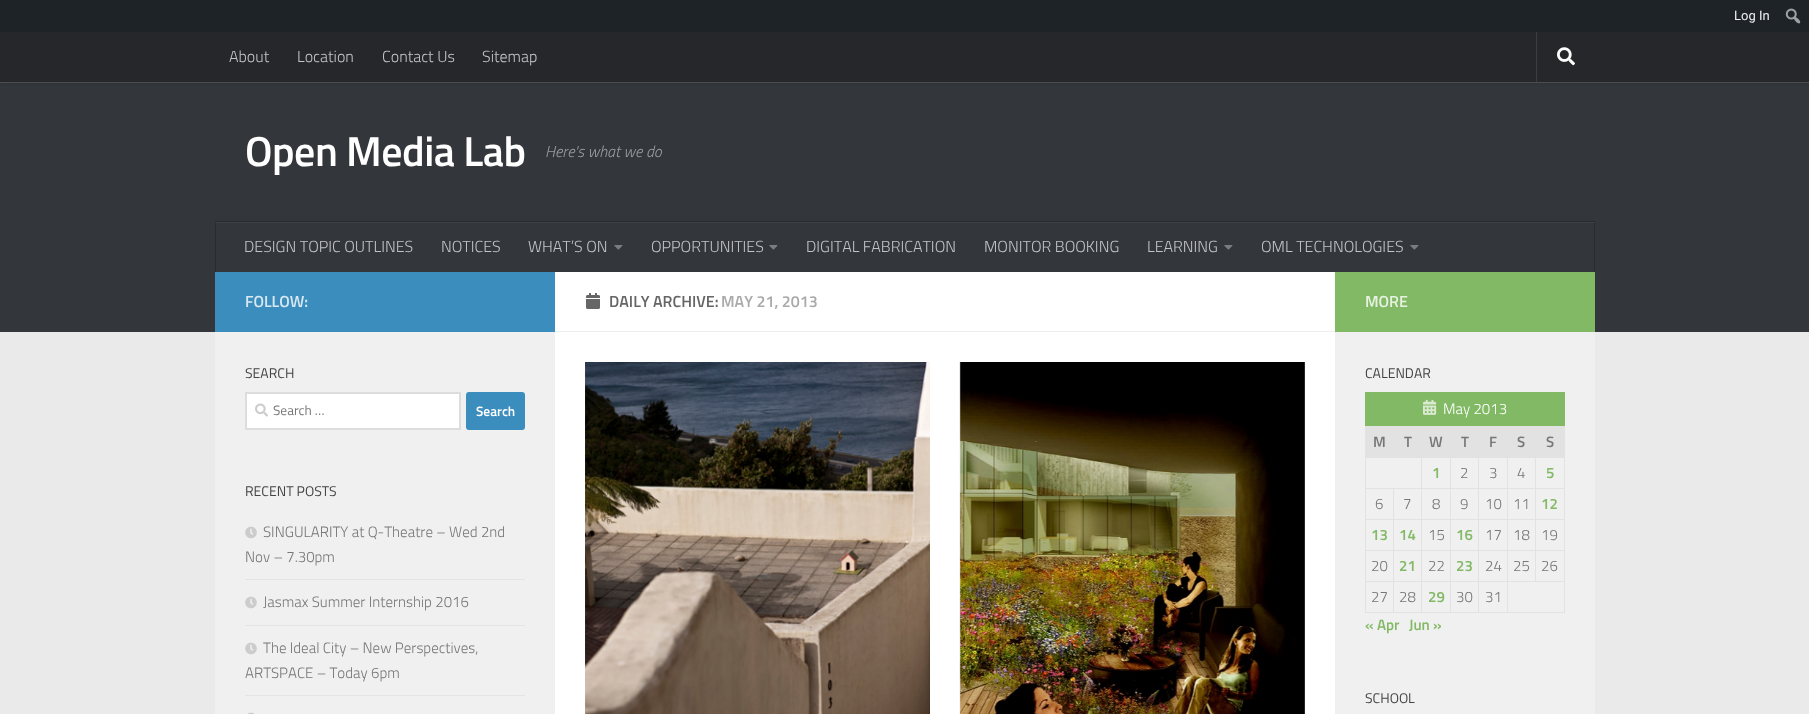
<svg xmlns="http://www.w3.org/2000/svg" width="1809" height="714">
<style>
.a{font:13px Roboto;fill:#f0f0f1}
.b{font:300 16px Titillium;fill:#c2c3c4}
.c{font:600 42px Titillium;letter-spacing:-0.5px;fill:#fff}
.d{font:italic 300 16px Titillium;fill:#999b9d}
.e{font:600 16px Titillium;fill:#d8e8f2}
.f{font:14px Titillium;fill:#444}
.g{font:13.5px Titillium;fill:#777}
.h{font:600 13.5px Titillium;fill:#fff}
.i{font:300 15px Titillium;fill:#777}
.j{font:600 16px Titillium;fill:#666}
.k{font:600 16px Titillium;fill:#aaa}
.l{font:600 16px Titillium;fill:#e6f1e0}
.m{font:300 15px Titillium;fill:#fff}
.n{font:600 15px Titillium;fill:#777}
.o{font:600 15px Titillium;fill:#82b965}
</style>
<rect width="100%" height="100%" fill="#eaeaea"/>
<path fill="#33363b" d="M0 83h1809v249H0z"/>
<path fill="#525458" d="M0 82h1809v1H0z"/>
<path fill="#00000033" filter="blur(2.5px)" d="M0 32h1809v50H0z"/>
<path fill="#1d2327" d="M0 0h1809v32H0z"/>
<image href="1.png" x="1785" y="8" width="16" height="16"/>
<path fill="#3d4045" d="M215 222h1380v1H215z"/>
<path fill="#26272b" d="M0 32h1809v50H0z"/>
<path fill="#3c3d40" d="M1536 32h1v50H1536z"/>
<image href="2.png" x="1557" y="47" width="18" height="19"/>
<path fill="#292b2f" d="M215 221h1380v1H215z"/>
<path fill="#292b2f" d="M1594 222h1v50H1594z"/>
<path fill="#343639" d="M1594 222h1v1H1594z"/>
<path fill="#292b2f" d="M215 222h1v50H215z"/>
<path fill="#343639" d="M215 222h1v1H215z"/>
<image href="3.png" x="614" y="245" width="9" height="5"/>
<image href="3.png" x="769" y="245" width="9" height="5"/>
<image href="3.png" x="1224" y="245" width="9" height="5"/>
<image href="3.png" x="1410" y="245" width="9" height="5"/>
<path fill="#fff" d="M555 272h780v442H555z"/>
<path fill="#3b8dbd" d="M215 272h340v60H215z"/>
<path fill="#f0f0f0" d="M215 332h340v382H215z"/>
<path fill="#fff" stroke="#ddd" stroke-width="2" d="M246 393h214v36H246z"/>
<image href="4.png" x="255" y="403" width="13" height="14"/>
<rect fill="#3b8dbd" x="466" y="392" width="59" height="38" rx="3"/>
<path fill="#e4e4e4" d="M245 579h280v1H245z"/>
<image href="5.png" x="245" y="526" width="12" height="13"/>
<path fill="#e4e4e4" d="M245 625h280v1H245z"/>
<image href="5.png" x="245" y="596" width="12" height="13"/>
<path fill="#e4e4e4" d="M245 695h280v1H245z"/>
<image href="5.png" x="245" y="642" width="12" height="13"/>
<image href="6.png" x="247" y="712" width="8" height="2"/>
<path fill="#eee" d="M555 331h780v1H555z"/>
<image href="7.png" x="586" y="293" width="14" height="16"/>
<image href="8.png" x="585" y="362" width="345" height="352"/>
<image href="9.png" x="959" y="362" width="346" height="352"/>
<path fill="#82b965" d="M1335 272h260v60H1335z"/>
<path fill="#f0f0f0" d="M1335 332h260v382H1335z"/>
<path fill="#82b965" d="M1365 392h200v34H1365z"/>
<image href="10.png" x="1423" y="399" width="14" height="16"/>
<path fill="#e2e2e2" d="M1365 427h199v30H1365z"/>
<path fill="#e2e2e2" d="M1365 426h200v1H1365z"/>
<path fill="#e2e2e2" d="M1535 457h30v1H1535z"/>
<path fill="#e2e2e2" d="M1535 488h30v1H1535z"/>
<path fill="#e2e2e2" d="M1535 519h30v1H1535z"/>
<path fill="#e2e2e2" d="M1535 550h30v1H1535z"/>
<path fill="#e2e2e2" d="M1507 581h58v1H1507z"/>
<path fill="#e2e2e2" d="M1564 581h1v32H1564z"/>
<path fill="#e2e2e2" d="M1564 550h1v32H1564z"/>
<path fill="#e2e2e2" d="M1564 519h1v32H1564z"/>
<path fill="#e2e2e2" d="M1564 488h1v32H1564z"/>
<path fill="#e2e2e2" d="M1564 457h1v32H1564z"/>
<path fill="#e2e2e2" d="M1564 426h1v32H1564z"/>
<path fill="#e2e2e2" d="M1535 550h1v32H1535z"/>
<path fill="#e2e2e2" d="M1507 550h29v1H1507z"/>
<path fill="#e2e2e2" d="M1535 519h1v32H1535z"/>
<path fill="#e2e2e2" d="M1507 519h29v1H1507z"/>
<path fill="#e2e2e2" d="M1535 488h1v32H1535z"/>
<path fill="#e2e2e2" d="M1507 488h29v1H1507z"/>
<path fill="#e2e2e2" d="M1535 457h1v32H1535z"/>
<path fill="#e2e2e2" d="M1507 457h29v1H1507z"/>
<path fill="#e2e2e2" d="M1507 612h58v1H1507z"/>
<path fill="#e2e2e2" d="M1507 581h1v32H1507z"/>
<path fill="#e2e2e2" d="M1478 581h30v1H1478z"/>
<path fill="#e2e2e2" d="M1507 550h1v32H1507z"/>
<path fill="#e2e2e2" d="M1478 550h30v1H1478z"/>
<path fill="#e2e2e2" d="M1507 519h1v32H1507z"/>
<path fill="#e2e2e2" d="M1478 519h30v1H1478z"/>
<path fill="#e2e2e2" d="M1507 488h1v32H1507z"/>
<path fill="#e2e2e2" d="M1478 488h30v1H1478z"/>
<path fill="#e2e2e2" d="M1507 457h1v32H1507z"/>
<path fill="#e2e2e2" d="M1478 457h30v1H1478z"/>
<path fill="#e2e2e2" d="M1478 612h30v1H1478z"/>
<path fill="#e2e2e2" d="M1478 581h1v32H1478z"/>
<path fill="#e2e2e2" d="M1450 581h29v1H1450z"/>
<path fill="#e2e2e2" d="M1478 550h1v32H1478z"/>
<path fill="#e2e2e2" d="M1450 550h29v1H1450z"/>
<path fill="#e2e2e2" d="M1478 519h1v32H1478z"/>
<path fill="#e2e2e2" d="M1450 519h29v1H1450z"/>
<path fill="#e2e2e2" d="M1478 488h1v32H1478z"/>
<path fill="#e2e2e2" d="M1450 488h29v1H1450z"/>
<path fill="#e2e2e2" d="M1478 457h1v32H1478z"/>
<path fill="#e2e2e2" d="M1450 457h29v1H1450z"/>
<path fill="#e2e2e2" d="M1450 612h29v1H1450z"/>
<path fill="#e2e2e2" d="M1450 581h1v32H1450z"/>
<path fill="#e2e2e2" d="M1421 581h30v1H1421z"/>
<path fill="#e2e2e2" d="M1450 550h1v32H1450z"/>
<path fill="#e2e2e2" d="M1421 550h30v1H1421z"/>
<path fill="#e2e2e2" d="M1450 519h1v32H1450z"/>
<path fill="#e2e2e2" d="M1421 519h30v1H1421z"/>
<path fill="#e2e2e2" d="M1450 488h1v32H1450z"/>
<path fill="#e2e2e2" d="M1421 488h30v1H1421z"/>
<path fill="#e2e2e2" d="M1450 457h1v32H1450z"/>
<path fill="#e2e2e2" d="M1421 457h30v1H1421z"/>
<path fill="#e2e2e2" d="M1421 612h30v1H1421z"/>
<path fill="#e2e2e2" d="M1421 581h1v32H1421z"/>
<path fill="#e2e2e2" d="M1393 581h29v1H1393z"/>
<path fill="#e2e2e2" d="M1421 550h1v32H1421z"/>
<path fill="#e2e2e2" d="M1393 550h29v1H1393z"/>
<path fill="#e2e2e2" d="M1421 519h1v32H1421z"/>
<path fill="#e2e2e2" d="M1393 519h29v1H1393z"/>
<path fill="#e2e2e2" d="M1421 488h1v32H1421z"/>
<path fill="#e2e2e2" d="M1393 488h29v1H1393z"/>
<path fill="#e2e2e2" d="M1421 457h1v32H1421z"/>
<path fill="#e2e2e2" d="M1365 457h57v1H1365z"/>
<path fill="#e2e2e2" d="M1393 612h29v1H1393z"/>
<path fill="#e2e2e2" d="M1393 581h1v32H1393z"/>
<path fill="#e2e2e2" d="M1365 581h29v1H1365z"/>
<path fill="#e2e2e2" d="M1393 550h1v32H1393z"/>
<path fill="#e2e2e2" d="M1365 550h29v1H1365z"/>
<path fill="#e2e2e2" d="M1393 519h1v32H1393z"/>
<path fill="#e2e2e2" d="M1365 519h29v1H1365z"/>
<path fill="#e2e2e2" d="M1393 488h1v32H1393z"/>
<path fill="#e2e2e2" d="M1365 488h29v1H1365z"/>
<path fill="#e2e2e2" d="M1365 612h29v1H1365z"/>
<path fill="#e2e2e2" d="M1365 581h1v32H1365z"/>
<path fill="#e2e2e2" d="M1365 550h1v32H1365z"/>
<path fill="#e2e2e2" d="M1365 519h1v32H1365z"/>
<path fill="#e2e2e2" d="M1365 488h1v32H1365z"/>
<path fill="#e2e2e2" d="M1365 457h1v32H1365z"/>
<text class="a" x="1734" y="20">Log In</text>
<text class="b" x="229" y="62">About</text>
<text class="b" x="297" y="62">Location</text>
<text class="b" x="382" y="62">Contact Us</text>
<text class="b" x="482" y="62">Sitemap</text>
<text class="c" x="245" y="166">Open Media Lab</text>
<text class="d" x="545" y="157">Here's what we do</text>
<text class="b" x="244" y="252">DESIGN TOPIC OUTLINES</text>
<text class="b" x="441" y="252">NOTICES</text>
<text class="b" x="528" y="252">WHAT’S ON</text>
<text class="b" x="651" y="252">OPPORTUNITIES</text>
<text class="b" x="806" y="252">DIGITAL FABRICATION</text>
<text class="b" x="984" y="252">MONITOR BOOKING</text>
<text class="b" x="1147" y="252">LEARNING</text>
<text class="b" x="1261" y="252">OML TECHNOLOGIES</text>
<text class="e" x="245" y="307">FOLLOW:</text>
<text class="f" x="245" y="378">SEARCH</text>
<text class="g" x="273" y="415">Search …</text>
<text class="h" x="476" y="416">Search</text>
<text class="f" x="245" y="496">RECENT POSTS</text>
<text class="i" x="263" y="537">SINGULARITY at Q-Theatre – Wed 2nd</text>
<text class="i" x="245" y="562">Nov – 7.30pm</text>
<text class="i" x="263" y="607">Jasmax Summer Internship 2016</text>
<text class="i" x="263" y="653">The Ideal City – New Perspectives,</text>
<text class="i" x="245" y="678">ARTSPACE – Today 6pm</text>
<text class="j" x="609" y="307">DAILY ARCHIVE:</text>
<text class="k" x="721" y="307">MAY 21, 2013</text>
<text class="l" x="1365" y="307">MORE</text>
<text class="f" x="1365" y="378">CALENDAR</text>
<text class="m" x="1443" y="414">May 2013</text>
<text class="n" x="1373" y="447">M</text>
<text class="n" x="1404" y="447">T</text>
<text class="n" x="1429" y="447">W</text>
<text class="n" x="1461" y="447">T</text>
<text class="n" x="1489" y="447">F</text>
<text class="n" x="1517" y="447">S</text>
<text class="n" x="1546" y="447">S</text>
<text class="o" x="1432" y="478">1</text>
<text class="i" x="1460" y="478">2</text>
<text class="i" x="1489" y="478">3</text>
<text class="i" x="1517" y="478">4</text>
<text class="o" x="1546" y="478">5</text>
<text class="i" x="1375" y="509">6</text>
<text class="i" x="1403" y="509">7</text>
<text class="i" x="1432" y="509">8</text>
<text class="i" x="1460" y="509">9</text>
<text class="i" x="1485" y="509">10</text>
<text class="i" x="1513" y="509">11</text>
<text class="o" x="1541" y="509">12</text>
<text class="o" x="1371" y="540">13</text>
<text class="o" x="1399" y="540">14</text>
<text class="i" x="1428" y="540">15</text>
<text class="o" x="1456" y="540">16</text>
<text class="i" x="1485" y="540">17</text>
<text class="i" x="1513" y="540">18</text>
<text class="i" x="1541" y="540">19</text>
<text class="i" x="1371" y="571">20</text>
<text class="o" x="1399" y="571">21</text>
<text class="i" x="1428" y="571">22</text>
<text class="o" x="1456" y="571">23</text>
<text class="i" x="1485" y="571">24</text>
<text class="i" x="1513" y="571">25</text>
<text class="i" x="1541" y="571">26</text>
<text class="i" x="1371" y="602">27</text>
<text class="i" x="1399" y="602">28</text>
<text class="o" x="1428" y="602">29</text>
<text class="i" x="1456" y="602">30</text>
<text class="i" x="1485" y="602">31</text>
<text class="o" x="1365" y="630">« Apr</text>
<text class="o" x="1409" y="630">Jun »</text>
<text class="f" x="1365" y="703">SCHOOL</text>
</svg>
